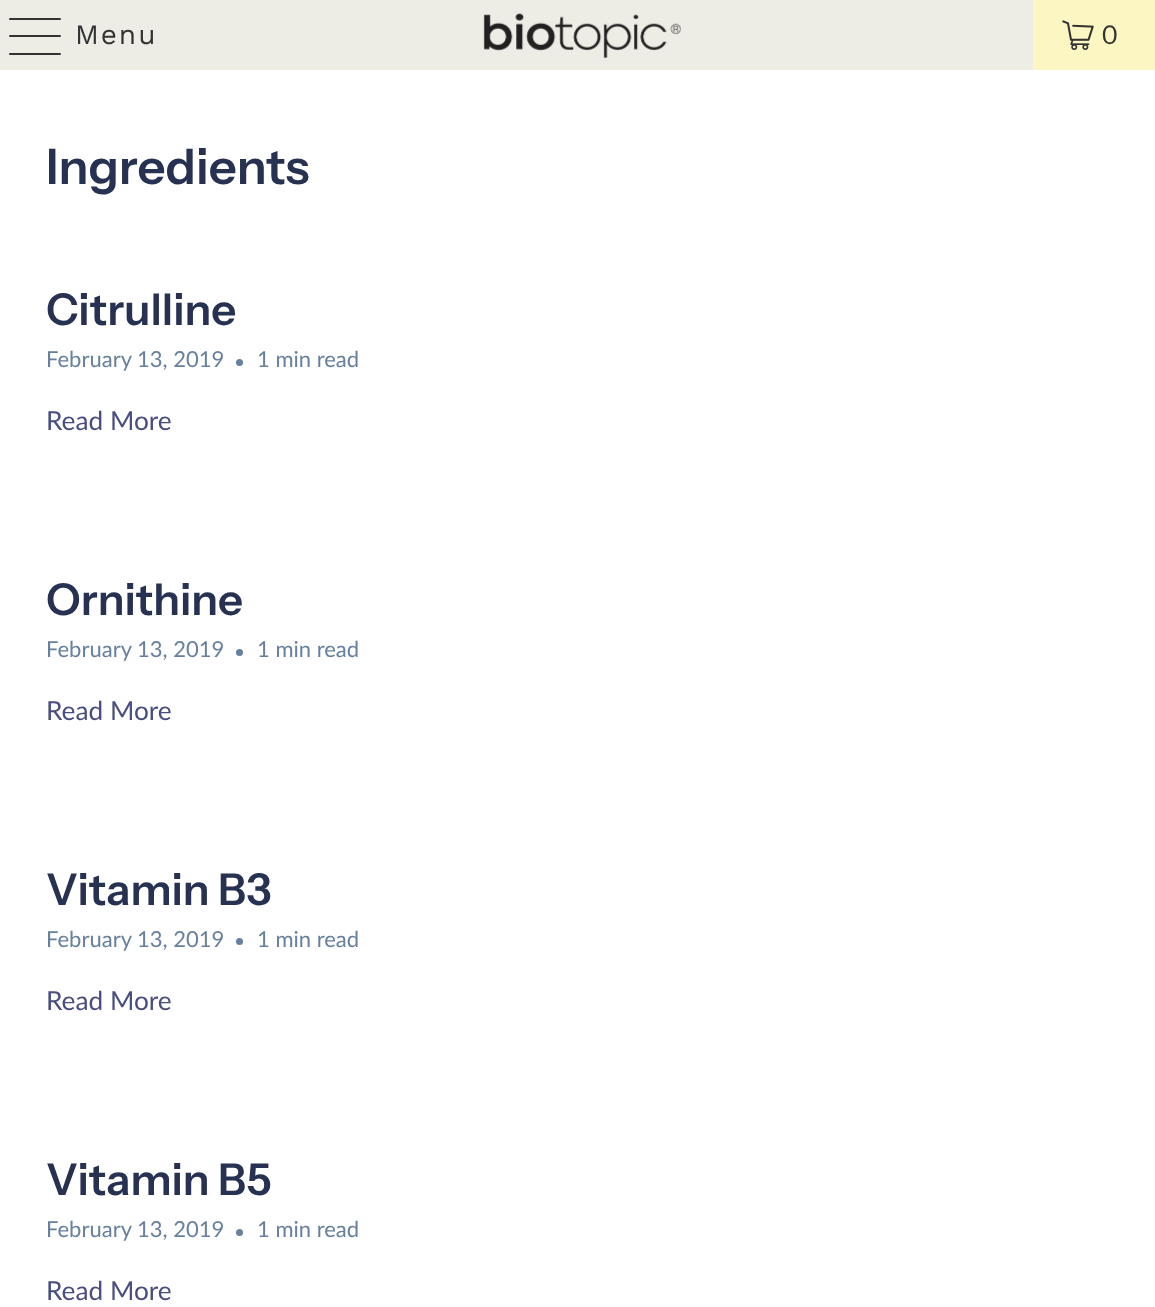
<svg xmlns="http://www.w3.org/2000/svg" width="1155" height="1307">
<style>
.a{font:28px Work Sans;letter-spacing:2px;fill:#333}
.b{font:600 49px Instrument Sans;fill:#273151}
.c{font:600 43.75px Instrument Sans;fill:#273151}
.d{font:22px Lato;fill:#66809e}
.e{font:26.25px Lato;fill:#494e80}
</style>
<rect width="100%" height="100%" fill="#fff"/>
<path fill="#edede5" d="M0 0h1033v70H0z"/>
<rect fill="#333" x="9" y="18" width="52" height="2" rx="1"/>
<rect fill="#333" x="9" y="35" width="52" height="2" rx="1"/>
<rect fill="#333" x="9" y="53" width="52" height="2" rx="1"/>
<image href="1.png" x="483" y="13" width="198" height="45"/>
<path fill="#fcf6c3" d="M1033 0h122v70H1033z"/>
<image href="2.png" x="1062" y="20" width="32" height="30"/>
<circle fill="#66809e" cx="239.5" cy="362.5" r="3.5"/>
<circle fill="#66809e" cx="239.5" cy="652.5" r="3.5"/>
<circle fill="#66809e" cx="239.5" cy="941.5" r="3.5"/>
<circle fill="#66809e" cx="239.5" cy="1232.5" r="3.5"/>
<text class="a" x="75" y="44">Menu</text>
<text class="a" x="1101" y="44">0</text>
<text class="b" x="46" y="184">Ingredients</text>
<text class="c" x="46" y="325">Citrulline</text>
<text class="d" x="46" y="367">February 13, 2019</text>
<text class="d" x="257" y="367">1 min read</text>
<text class="e" x="46" y="430">Read More</text>
<text class="c" x="46" y="615">Ornithine</text>
<text class="d" x="46" y="657">February 13, 2019</text>
<text class="d" x="257" y="657">1 min read</text>
<text class="e" x="46" y="720">Read More</text>
<text class="c" x="46" y="905">Vitamin B3</text>
<text class="d" x="46" y="947">February 13, 2019</text>
<text class="d" x="257" y="947">1 min read</text>
<text class="e" x="46" y="1010">Read More</text>
<text class="c" x="46" y="1195">Vitamin B5</text>
<text class="d" x="46" y="1237">February 13, 2019</text>
<text class="d" x="257" y="1237">1 min read</text>
<text class="e" x="46" y="1300">Read More</text>
</svg>
